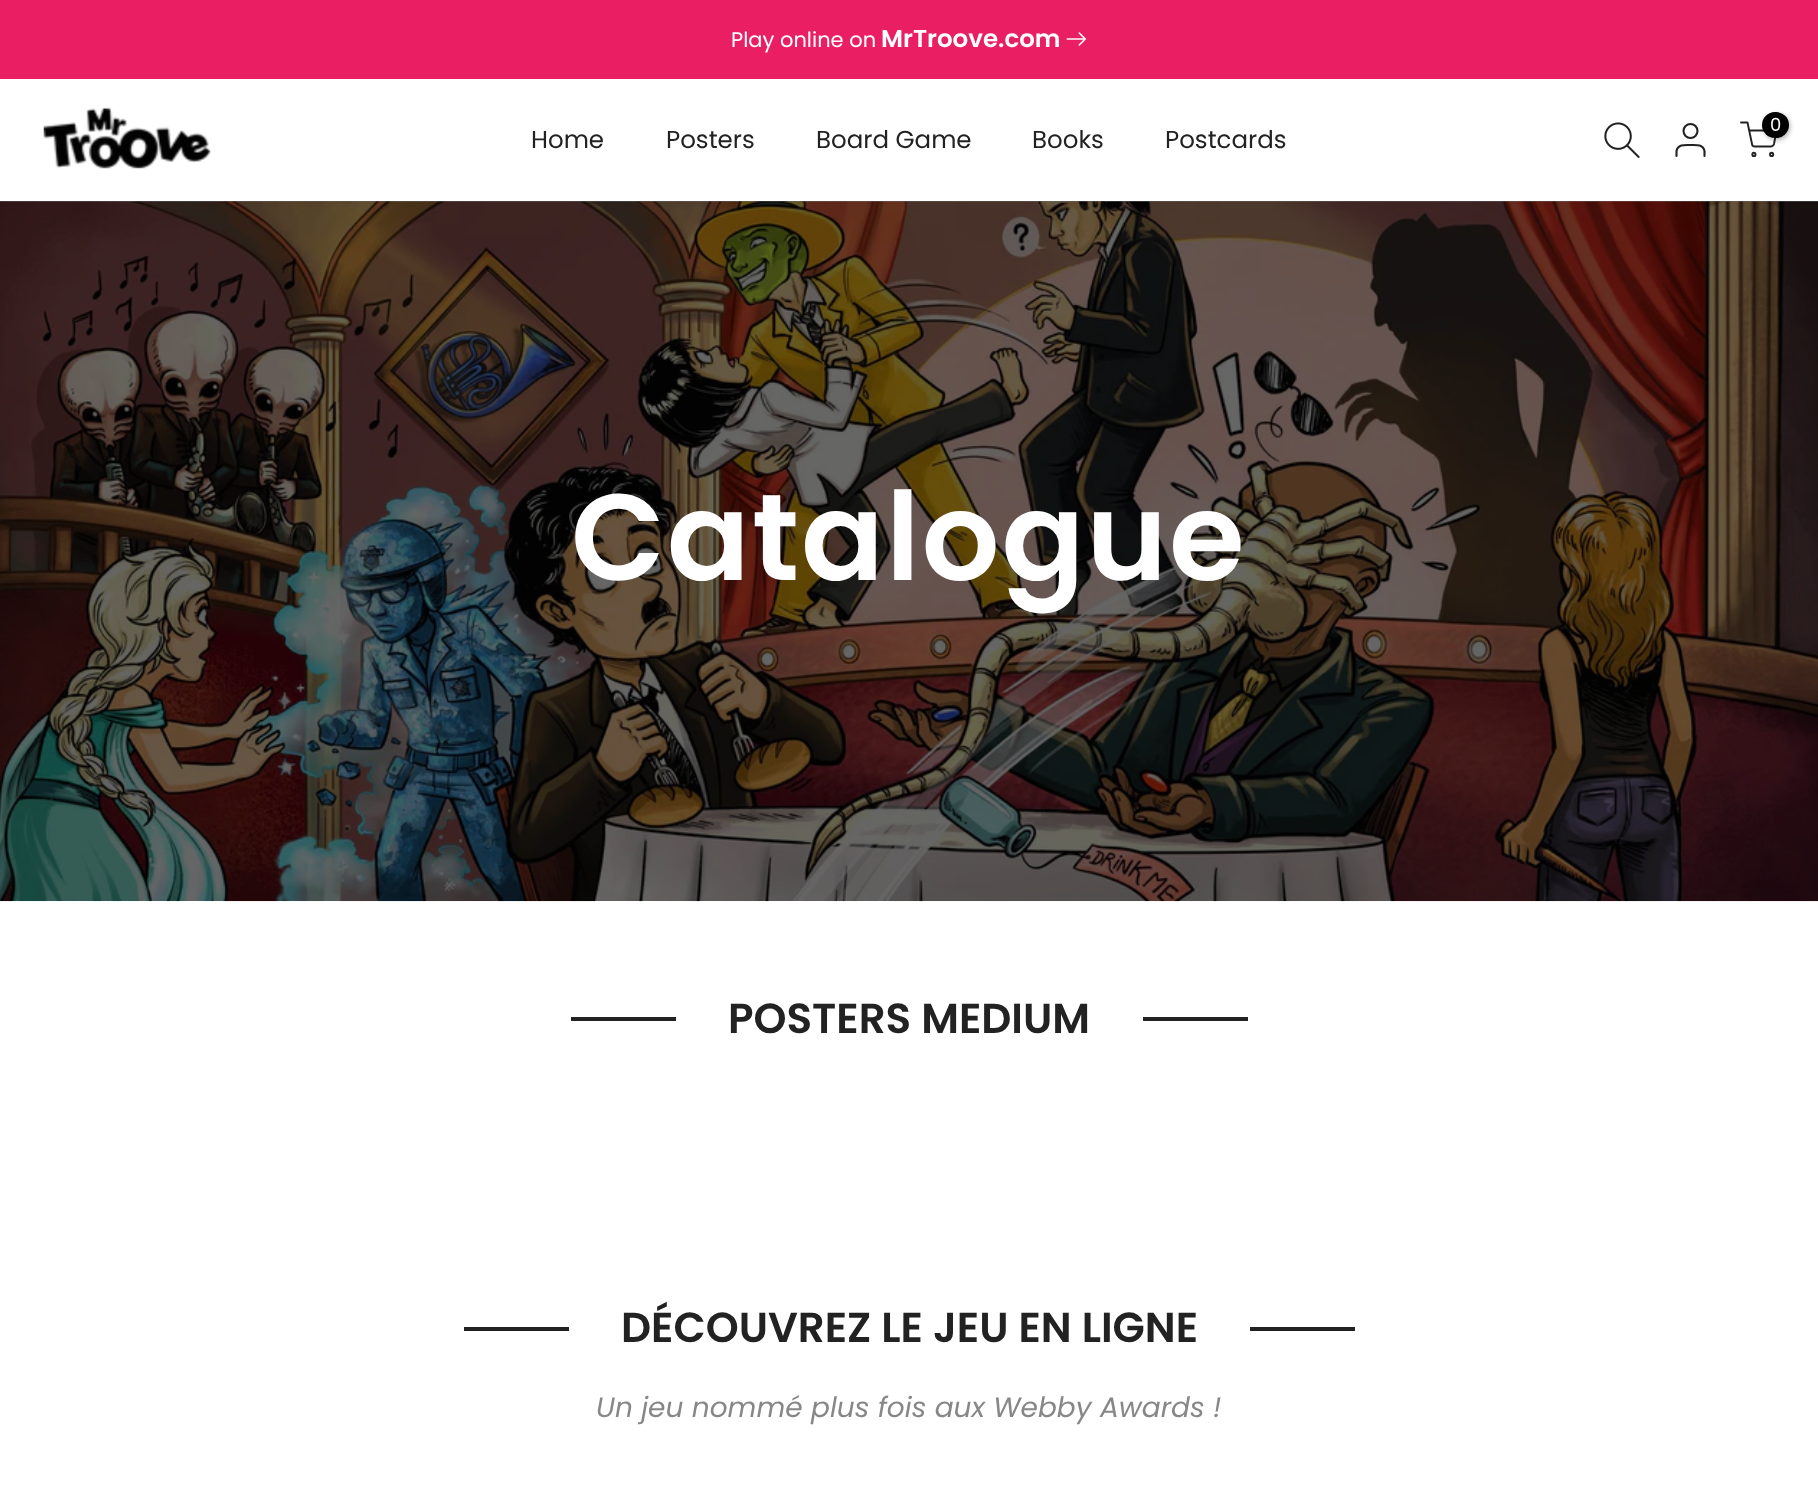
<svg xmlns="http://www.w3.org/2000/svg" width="1818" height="1490">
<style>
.a{font:21px Poppins;fill:#fff}
.b{font:600 24.5px Poppins;fill:#fff}
.c{font:18px Poppins;fill:#fff}
.d{font:24.5px Poppins;fill:#222}
.e{font:600 122.5px Poppins;letter-spacing:1.75px;fill:#fff}
.f{font:600 42px Poppins;fill:#222}
.g{font:italic 28px Poppins;fill:#878787}
</style>
<rect width="100%" height="100%" fill="#fff"/>
<path fill="#666" d="M0 201h1818v1H0z"/>
<path fill="#e91e63" d="M0 0h1818v79H0z"/>
<image href="1.png" x="1066" y="32" width="20" height="14"/>
<image href="2.png" x="43" y="107" width="168" height="62"/>
<image href="3.png" x="1604" y="122" width="36" height="36"/>
<circle fill="none" stroke="#222" stroke-width="2.1" cx="1690.5" cy="131" r="7"/>
<path fill="none" stroke="#222" stroke-width="2.1" stroke-linecap="round" stroke-linejoin="round" d="M1704.5 156v-5c-1.5-7-9-6-14-6c-5 0-12.5-1-14 6v5"/>
<path fill="none" stroke="#222" stroke-width="1.9" stroke-linecap="round" stroke-linejoin="round" d="M1741 122.5h6.5l4.5 21.5c0 1.5 1.5 2.5 3 2.5h15.5c1.5 0 3-1 3.5-2.5l2.5-13.5h-27.5"/>
<rect fill="#0000004d" filter="blur(2.5px)" x="1764" y="114" width="26" height="26" rx="13"/>
<rect fill="#000" x="1762" y="112" width="27" height="26" rx="13"/>
<circle fill="none" stroke="#222" stroke-width="1.9" cx="1753.9" cy="154.4" r="1.6"/>
<circle fill="none" stroke="#222" stroke-width="1.9" cx="1771.6" cy="154.4" r="1.6"/>
<image href="4.png" x="0" y="201" width="1818" height="701"/>
<path fill="#222" d="M571 1017h105v4H571z"/>
<path fill="#222" d="M1143 1017h105v4H1143z"/>
<path fill="#222" d="M464 1327h105v4H464z"/>
<path fill="#222" d="M1250 1327h105v4H1250z"/>
<text class="a" x="731" y="47">Play online on</text>
<text class="b" x="881" y="47">MrTroove.com</text>
<text class="c" x="1770" y="131">0</text>
<text class="d" x="531" y="148">Home</text>
<text class="d" x="666" y="148">Posters</text>
<text class="d" x="816" y="148">Board Game</text>
<text class="d" x="1032" y="148">Books</text>
<text class="d" x="1165" y="148">Postcards</text>
<text class="e" x="571" y="580">Catalogue</text>
<text class="f" x="728" y="1033">POSTERS MEDIUM</text>
<text class="f" x="621" y="1342">DÉCOUVREZ LE JEU EN LIGNE</text>
<text class="g" x="596" y="1417">Un jeu nommé plus fois aux Webby Awards !</text>
</svg>
